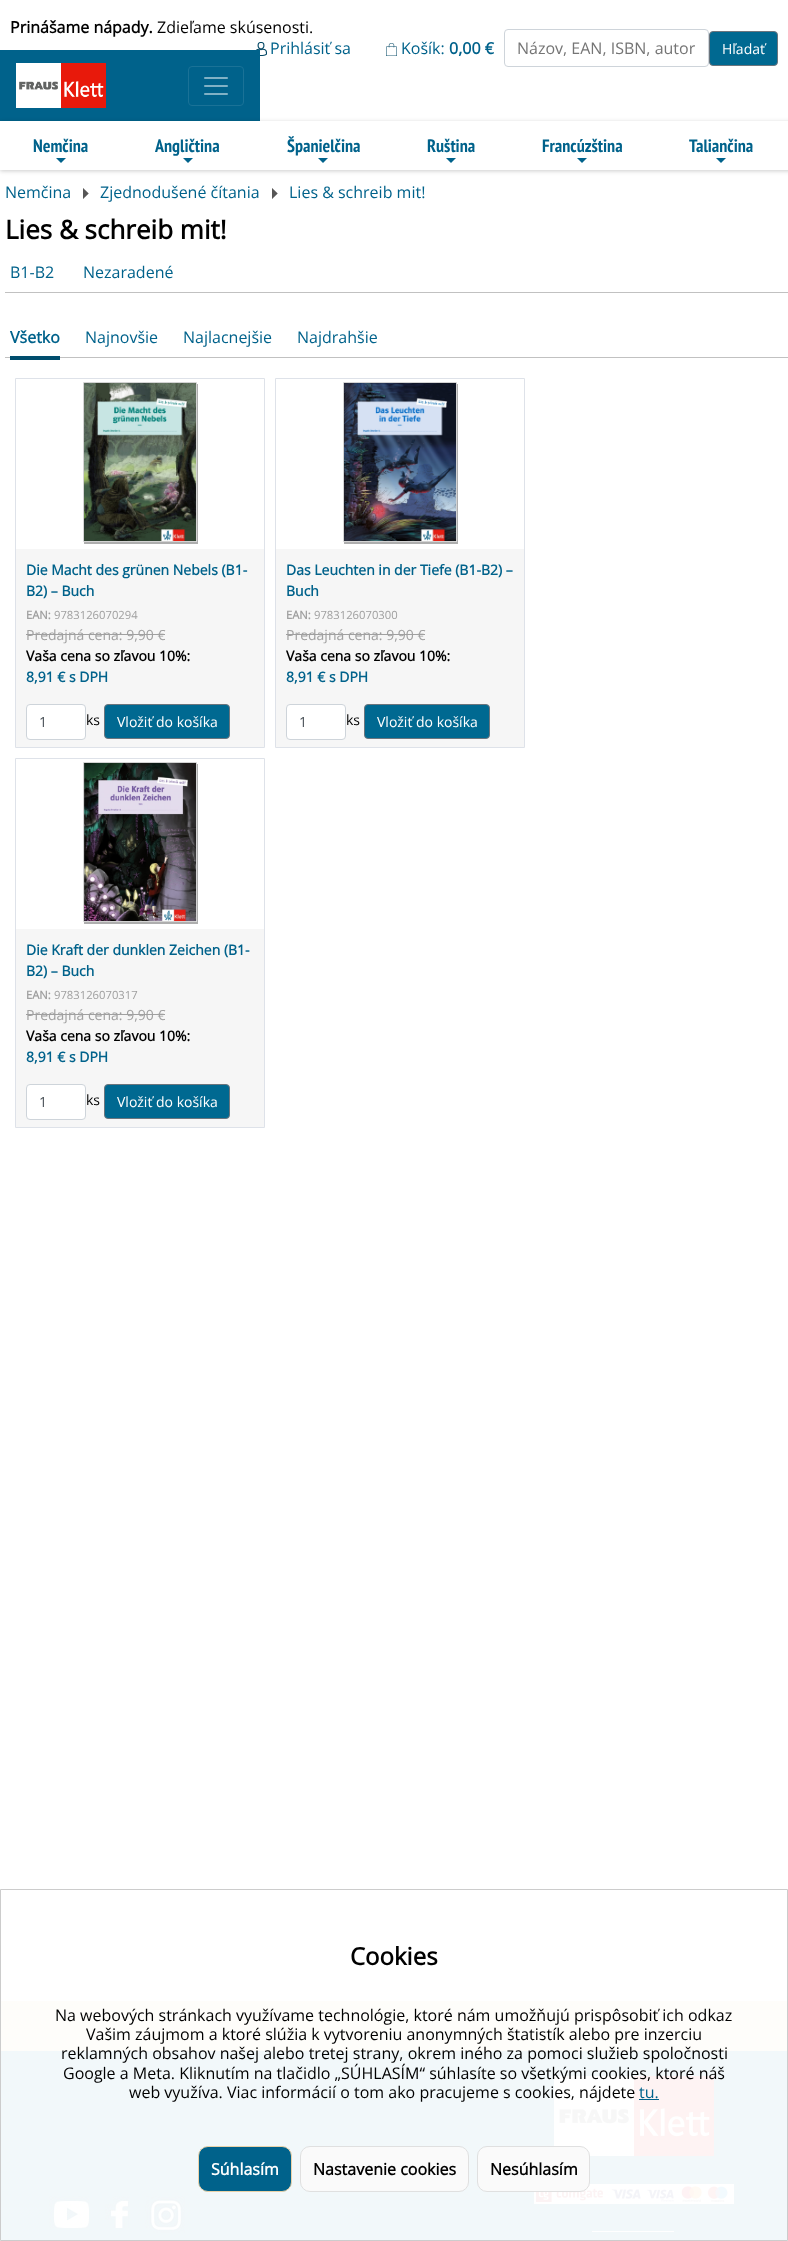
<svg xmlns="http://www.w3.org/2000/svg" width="788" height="2241">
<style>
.a{font:bold 16px Open Sans;fill:#000}
.b{font:16px Open Sans;fill:#000}
.c{font:16px Open Sans;fill:#00628b}
.d{font:bold 16px Open Sans;fill:#00628b}
.e{font:16px Open Sans;fill:#757575}
.f{font:14px Open Sans;fill:#fff}
.g{font:bold 18px PT Sans Narrow;fill:#00628b}
.h{font:bold 26px Open Sans;fill:#000}
.i{font:bold 14px Open Sans;fill:#00628b}
.j{font:bold 11.25px Open Sans;fill:#a0a0a0}
.k{font:11.25px Open Sans;fill:#a0a0a0}
.l{font:14px Open Sans;fill:#a0a0a0}
.m{font:bold 14px Open Sans;fill:#000}
.n{font:14px Open Sans;fill:#495057}
.o{font:14px Open Sans;fill:#000}
.p{font:bold 24px Open Sans;fill:#000}
.q{font:bold 16px Open Sans;fill:#fff}
</style>
<defs>
<clipPath id="clip1"><path d="M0 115h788v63h-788zm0 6h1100v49h-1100z" clip-rule="evenodd"/></clipPath>
</defs>
<rect width="100%" height="100%" fill="#fff"/>
<image href="1.png" x="256" y="42" width="11" height="14"/>
<image href="2.png" x="386" y="43" width="11" height="13"/>
<rect fill="none" stroke="#ced4da" x="504.5" y="29.5" width="204" height="37" rx="3.5"/>
<rect fill="#006991" stroke="#6c757d" x="709.5" y="31.5" width="68" height="34" rx="3.5"/>
<path fill="#00628b" d="M0 50h260v71H0z"/>
<image href="3.png" x="16" y="63" width="90" height="45"/>
<rect fill="none" stroke="#1a7297" x="188.5" y="66.5" width="55" height="39" rx="3.5"/>
<image href="4.png" x="204" y="77" width="24" height="18"/>
<g clip-path="url(#clip1)">
<path fill="#00000033" filter="blur(2px)" d="M0 122h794v49H0z"/>
</g>
<path fill="#00628b" d="M56 158h10l-5 5z"/>
<path fill="#00628b" d="M183 158h10l-5 5z"/>
<path fill="#00628b" d="M318 158h10l-5 5z"/>
<path fill="#00628b" d="M446 158h10l-5 5z"/>
<path fill="#00628b" d="M577 158h10l-5 5z"/>
<path fill="#00628b" d="M716 158h10l-5 5z"/>
<image href="5.png" x="83" y="188" width="6" height="11"/>
<image href="5.png" x="272" y="188" width="6" height="11"/>
<path fill="#c1c1c1" d="M5 292h783v1H5z"/>
<path fill="#c1c1c1" d="M5 357h783v1H5z"/>
<path fill="#004d6d" d="M10 356h50v4H10z"/>
<path fill="none" stroke="#dee2e9" d="M15.5 378.5h249v369H15.5z"/>
<path fill="#aeaeae" d="M84 542v2h114v-160h-1v158z"/>
<path fill="none" stroke="#d3d3d3" d="M83.5 382.5h113v159H83.5z"/>
<image href="6.png" x="84" y="383" width="112" height="158"/>
<path fill="#f6f6f6" d="M16 549h248v198H16z"/>
<path fill="#a0a0a0" d="M26 634h139v1H26z"/>
<rect fill="#fff" stroke="#ced4da" x="26.5" y="704.5" width="59" height="35" rx="3.5"/>
<rect fill="#006991" stroke="#6c757d" x="104.5" y="704.5" width="125" height="34" rx="3.5"/>
<path fill="none" stroke="#dee2e9" d="M275.5 378.5h249v369H275.5z"/>
<path fill="#aeaeae" d="M344 542v2h114v-160h-1v158z"/>
<path fill="none" stroke="#d3d3d3" d="M343.5 382.5h113v159H343.5z"/>
<image href="7.png" x="344" y="383" width="112" height="158"/>
<path fill="#f6f6f6" d="M276 549h248v198H276z"/>
<path fill="#a0a0a0" d="M286 634h139v1H286z"/>
<rect fill="#fff" stroke="#ced4da" x="286.5" y="704.5" width="59" height="35" rx="3.5"/>
<rect fill="#006991" stroke="#6c757d" x="364.5" y="704.5" width="125" height="34" rx="3.5"/>
<path fill="none" stroke="#dee2e9" d="M15.5 758.5h249v369H15.5z"/>
<path fill="#aeaeae" d="M84 922v2h114v-160h-1v158z"/>
<path fill="none" stroke="#d3d3d3" d="M83.5 762.5h113v159H83.5z"/>
<image href="8.png" x="84" y="763" width="112" height="158"/>
<path fill="#f6f6f6" d="M16 929h248v198H16z"/>
<path fill="#a0a0a0" d="M26 1014h139v1H26z"/>
<rect fill="#fff" stroke="#ced4da" x="26.5" y="1084.5" width="59" height="35" rx="3.5"/>
<rect fill="#006991" stroke="#6c757d" x="104.5" y="1084.5" width="125" height="34" rx="3.5"/>
<path fill="#f2f8fa" d="M1 2051h786v189H1z"/>
<path fill="#fefdfa" d="M1 2001h786v50H1z"/>
<image href="9.png" x="49" y="2196" width="40" height="32"/>
<image href="10.png" x="105" y="2196" width="24" height="32"/>
<image href="11.png" x="145" y="2196" width="40" height="37"/>
<image href="12.png" x="554" y="2076" width="160" height="80"/>
<image href="13.png" x="534" y="2184" width="200" height="20"/>
<path fill="#fff" d="M592 2231h82v1H592z"/>
<path fill="none" stroke="#ccc" d="M0.5 1889.5h787v351H0.5z"/>
<path fill="#00628b" d="M639 2099h20v1H639z"/>
<rect fill="#00628b" stroke="#e9d2a8" x="198.5" y="2146.5" width="93" height="45" rx="9.5"/>
<rect fill="#fafafa" stroke="#e0e0e0" x="300.5" y="2146.5" width="168" height="45" rx="9.5"/>
<rect fill="#fafafa" stroke="#e0e0e0" x="477.5" y="2146.5" width="112" height="45" rx="9.5"/>
<text class="a" x="10" y="33">Prinášame nápady.</text>
<text class="b" x="157" y="33">Zdieľame skúsenosti.</text>
<text class="c" x="270" y="54">Prihlásiť sa</text>
<text class="c" x="401" y="54">Košík:</text>
<text class="d" x="449" y="54">0,00 €</text>
<text class="e" x="517" y="54">Názov, EAN, ISBN, autor</text>
<text class="f" x="722" y="54">Hľadať</text>
<text class="g" x="33" y="152">Nemčina</text>
<text class="g" x="155" y="152">Angličtina</text>
<text class="g" x="287" y="152">Španielčina</text>
<text class="g" x="427" y="152">Ruština</text>
<text class="g" x="542" y="152">Francúzština</text>
<text class="g" x="689" y="152">Taliančina</text>
<text class="c" x="5" y="198">Nemčina</text>
<text class="c" x="100" y="198">Zjednodušené čítania</text>
<text class="c" x="289" y="198">Lies &amp; schreib mit!</text>
<text class="h" x="5" y="239">Lies &amp; schreib mit!</text>
<text class="c" x="10" y="278">B1-B2</text>
<text class="c" x="83" y="278">Nezaradené</text>
<text class="d" x="10" y="343">Všetko</text>
<text class="c" x="85" y="343">Najnovšie</text>
<text class="c" x="183" y="343">Najlacnejšie</text>
<text class="c" x="297" y="343">Najdrahšie</text>
<text class="i" x="26" y="575">Die Macht des grünen Nebels (B1-</text>
<text class="i" x="26" y="596">B2) – Buch</text>
<text class="j" x="26" y="619">EAN:</text>
<text class="k" x="54" y="619">9783126070294</text>
<text class="l" x="26" y="640">Predajná cena: 9,90 €</text>
<text class="m" x="26" y="661">Vaša cena so zľavou 10%:</text>
<text class="i" x="26" y="682">8,91 € s DPH</text>
<text class="n" x="39" y="727">1</text>
<text class="o" x="86" y="725">ks</text>
<text class="f" x="117" y="727">Vložiť do košíka</text>
<text class="i" x="286" y="575">Das Leuchten in der Tiefe (B1-B2) –</text>
<text class="i" x="286" y="596">Buch</text>
<text class="j" x="286" y="619">EAN:</text>
<text class="k" x="314" y="619">9783126070300</text>
<text class="l" x="286" y="640">Predajná cena: 9,90 €</text>
<text class="m" x="286" y="661">Vaša cena so zľavou 10%:</text>
<text class="i" x="286" y="682">8,91 € s DPH</text>
<text class="n" x="299" y="727">1</text>
<text class="o" x="346" y="725">ks</text>
<text class="f" x="377" y="727">Vložiť do košíka</text>
<text class="i" x="26" y="955">Die Kraft der dunklen Zeichen (B1-</text>
<text class="i" x="26" y="976">B2) – Buch</text>
<text class="j" x="26" y="999">EAN:</text>
<text class="k" x="54" y="999">9783126070317</text>
<text class="l" x="26" y="1020">Predajná cena: 9,90 €</text>
<text class="m" x="26" y="1041">Vaša cena so zľavou 10%:</text>
<text class="i" x="26" y="1062">8,91 € s DPH</text>
<text class="n" x="39" y="1107">1</text>
<text class="o" x="86" y="1105">ks</text>
<text class="f" x="117" y="1107">Vložiť do košíka</text>
<text class="p" x="350" y="1965">Cookies</text>
<text class="b" x="55" y="2021">Na webových stránkach využívame technológie, ktoré nám umožňujú prispôsobiť ich odkaz</text>
<text class="b" x="86" y="2040">Vašim záujmom a ktoré slúžia k vytvoreniu anonymných štatistík alebo pre inzerciu</text>
<text class="b" x="61" y="2059">reklamných obsahov našej alebo tretej strany, okrem iného za pomoci služieb spoločnosti</text>
<text class="b" x="63" y="2079">Google a Meta. Kliknutím na tlačidlo „SÚHLASÍM“ súhlasíte so všetkými cookies, ktoré náš</text>
<text class="b" x="129" y="2098">web využíva. Viac informácií o tom ako pracujeme s cookies, nájdete</text>
<text class="c" x="639" y="2098">tu.</text>
<text class="q" x="211" y="2175">Súhlasím</text>
<text class="a" x="313" y="2175">Nastavenie cookies</text>
<text class="a" x="490" y="2175">Nesúhlasím</text>
</svg>
